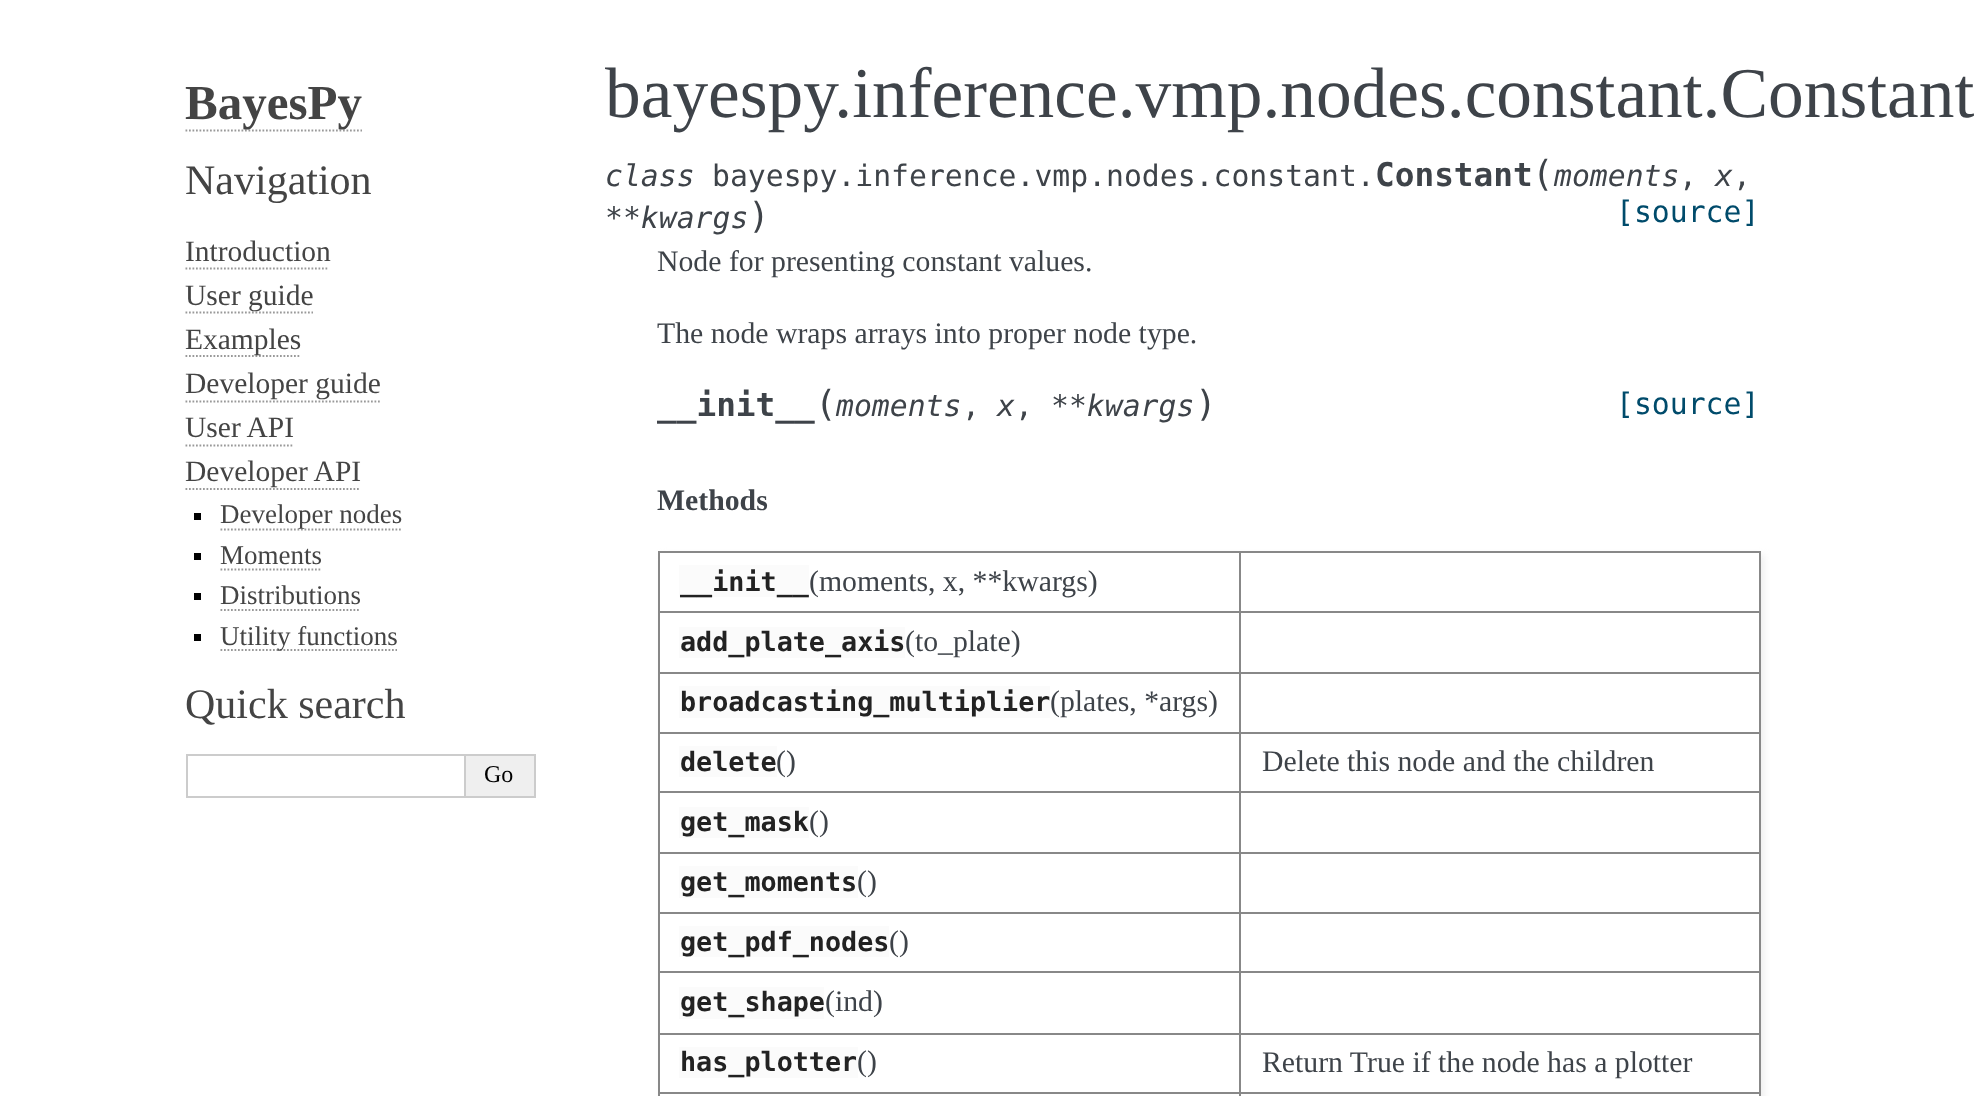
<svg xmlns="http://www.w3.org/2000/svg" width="1979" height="1096">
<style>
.a{font:bold 49px Liberation Serif;fill:#444}
.b{font:42px Liberation Serif;fill:#444}
.c{font:29.5px Liberation Serif;fill:#444}
.d{font:27px Liberation Serif;fill:#444}
.e{font:24px Liberation Serif;fill:#000}
.f{font:71.4px Liberation Serif;fill:#3e4349}
.g{font:italic 29.75px DejaVu Sans Mono;fill:#3e4349}
.h{font:29.75px DejaVu Sans Mono;fill:#3e4349}
.i{font:bold 32.75px DejaVu Sans Mono;fill:#3e4349}
.j{font:36px DejaVu Sans Mono;fill:#3e4349}
.k{font:29.75px DejaVu Sans Mono;fill:#004b6b}
.l{font:29.75px Liberation Serif;fill:#3e4349}
.m{font:bold 29.75px Liberation Serif;fill:#3e4349}
.n{font:bold 26.75px DejaVu Sans Mono;fill:#222}
</style>
<defs>
<clipPath id="clip1"><path d="M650 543h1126v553h-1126zm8 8h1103v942h-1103z" clip-rule="evenodd"/></clipPath>
</defs>
<rect width="100%" height="100%" fill="#fff"/>
<path fill="none" stroke="#999" stroke-width="1.8" stroke-dasharray="1.75 1.75" d="M185.5 130.5h176.5"/>
<path fill="none" stroke="#999" stroke-width="1.8" stroke-dasharray="1.75 1.75" d="M185.5 268.5h143.5"/>
<path fill="none" stroke="#999" stroke-width="1.8" stroke-dasharray="1.75 1.75" d="M185.5 312.5h127.5"/>
<path fill="none" stroke="#999" stroke-width="1.8" stroke-dasharray="1.75 1.75" d="M185.5 356h115.5"/>
<path fill="none" stroke="#999" stroke-width="1.8" stroke-dasharray="1.75 1.75" d="M185.5 401.5h194.5"/>
<path fill="none" stroke="#999" stroke-width="1.8" stroke-dasharray="1.75 1.75" d="M185.5 445.5h108.5"/>
<path fill="none" stroke="#999" stroke-width="1.8" stroke-dasharray="1.75 1.75" d="M185.5 489h175"/>
<path fill="#000" d="M194 513h7v7H194z"/>
<path fill="none" stroke="#999" stroke-width="1.8" stroke-dasharray="1.75 1.75" d="M220.5 529.5h180.5"/>
<path fill="#000" d="M194 553h7v7H194z"/>
<path fill="none" stroke="#999" stroke-width="1.8" stroke-dasharray="1.75 1.75" d="M220.5 569.5h101.5"/>
<path fill="#000" d="M194 593h7v7H194z"/>
<path fill="none" stroke="#999" stroke-width="1.8" stroke-dasharray="1.75 1.75" d="M220.5 610h140"/>
<path fill="#000" d="M194 634h7v7H194z"/>
<path fill="none" stroke="#999" stroke-width="1.8" stroke-dasharray="1.75 1.75" d="M220.5 650h176.5"/>
<path fill="none" stroke="#ccc" stroke-width="2" d="M187 755h278v42H187z"/>
<path fill="#efefef" d="M466 756h68v40H466z"/>
<path fill="#ccc" d="M466 754h70v2H466z"/>
<path fill="#ccc" d="M534 754h2v44H534z"/>
<path fill="#ccc" d="M466 796h70v2H466z"/>
<g clip-path="url(#clip1)">
<path fill="#eee" filter="blur(3.5px)" d="M662 555h1102v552H662z"/>
</g>
<path fill="#888" d="M658 551h1103v2H658z"/>
<path fill="#888" d="M1759 551h2v545H1759z"/>
<path fill="#888" d="M658 551h2v545H658z"/>
<path fill="#fbfbfb" d="M679 565h130v32H679z"/>
<path fill="#888" d="M1239 611h522v2H1239z"/>
<path fill="#888" d="M1239 672h522v2H1239z"/>
<path fill="#888" d="M1239 732h522v2H1239z"/>
<path fill="#888" d="M1239 791h522v2H1239z"/>
<path fill="#888" d="M1239 852h522v2H1239z"/>
<path fill="#888" d="M1239 912h522v2H1239z"/>
<path fill="#888" d="M1239 971h522v2H1239z"/>
<path fill="#888" d="M1239 1033h522v2H1239z"/>
<path fill="#888" d="M1239 1092h522v2H1239z"/>
<path fill="#888" d="M1239 1092h2v4H1239z"/>
<path fill="#888" d="M658 1092h583v2H658z"/>
<path fill="#888" d="M1239 1033h2v61H1239z"/>
<path fill="#888" d="M658 1033h583v2H658z"/>
<path fill="#888" d="M1239 971h2v63H1239z"/>
<path fill="#888" d="M658 971h583v2H658z"/>
<path fill="#888" d="M1239 912h2v61H1239z"/>
<path fill="#888" d="M658 912h583v2H658z"/>
<path fill="#888" d="M1239 852h2v62H1239z"/>
<path fill="#888" d="M658 852h583v2H658z"/>
<path fill="#888" d="M1239 791h2v63H1239z"/>
<path fill="#888" d="M658 791h583v2H658z"/>
<path fill="#888" d="M1239 732h2v61H1239z"/>
<path fill="#888" d="M658 732h583v2H658z"/>
<path fill="#888" d="M1239 672h2v61H1239z"/>
<path fill="#888" d="M658 672h583v2H658z"/>
<path fill="#888" d="M1239 611h2v63H1239z"/>
<path fill="#888" d="M658 611h583v2H658z"/>
<path fill="#888" d="M1239 551h2v62H1239z"/>
<path fill="#fbfbfb" d="M679 627h226v31H679z"/>
<path fill="#fbfbfb" d="M679 686h371v32H679z"/>
<path fill="#fbfbfb" d="M679 746h98v31H679z"/>
<path fill="#fbfbfb" d="M679 807h130v31H679z"/>
<path fill="#fbfbfb" d="M679 866h179v32H679z"/>
<path fill="#fbfbfb" d="M679 926h210v31H679z"/>
<path fill="#fbfbfb" d="M679 987h145v32H679z"/>
<path fill="#fbfbfb" d="M679 1047h179v31H679z"/>
<text class="a" x="185" y="119">BayesPy</text>
<text class="b" x="185" y="194">Navigation</text>
<text class="c" x="185" y="261">Introduction</text>
<text class="c" x="185" y="305">User guide</text>
<text class="c" x="185" y="349">Examples</text>
<text class="c" x="185" y="393">Developer guide</text>
<text class="c" x="185" y="437">User API</text>
<text class="c" x="185" y="481">Developer API</text>
<text class="d" x="220" y="523">Developer nodes</text>
<text class="d" x="220" y="564">Moments</text>
<text class="d" x="220" y="604">Distributions</text>
<text class="d" x="220" y="645">Utility functions</text>
<text class="b" x="185" y="718">Quick search</text>
<text class="e" x="484" y="782">Go</text>
<text class="f" x="605" y="117">bayespy.inference.vmp.nodes.constant.Constant</text>
<text class="g" x="605" y="186">class</text>
<text class="h" x="712" y="186">bayespy.inference.vmp.nodes.constant.</text>
<text class="i" x="1375" y="186">Constant</text>
<text class="j" x="1532" y="186">(</text>
<text class="g" x="1554" y="186">moments</text>
<text class="h" x="1679" y="186">,</text>
<text class="g" x="1715" y="186">x</text>
<text class="h" x="1733" y="186">,</text>
<text class="g" x="605" y="228">**kwargs</text>
<text class="j" x="748" y="228">)</text>
<text class="k" x="1616" y="222">[source]</text>
<text class="l" x="657" y="271">Node for presenting constant values.</text>
<text class="l" x="657" y="343">The node wraps arrays into proper node type.</text>
<text class="i" x="657" y="416">__init__</text>
<text class="j" x="815" y="416">(</text>
<text class="g" x="836" y="416">moments</text>
<text class="h" x="962" y="416">,</text>
<text class="g" x="997" y="416">x</text>
<text class="h" x="1015" y="416">,</text>
<text class="g" x="1051" y="416">**kwargs</text>
<text class="j" x="1195" y="416">)</text>
<text class="k" x="1616" y="414">[source]</text>
<text class="m" x="657" y="510">Methods</text>
<text class="n" x="680" y="591">__init__</text>
<text class="l" x="809" y="591">(moments, x, **kwargs)</text>
<text class="n" x="680" y="651">add_plate_axis</text>
<text class="l" x="905" y="651">(to_plate)</text>
<text class="n" x="680" y="711">broadcasting_multiplier</text>
<text class="l" x="1050" y="711">(plates, *args)</text>
<text class="n" x="680" y="771">delete</text>
<text class="l" x="776" y="771">()</text>
<text class="l" x="1262" y="771">Delete this node and the children</text>
<text class="n" x="680" y="831">get_mask</text>
<text class="l" x="809" y="831">()</text>
<text class="n" x="680" y="891">get_moments</text>
<text class="l" x="857" y="891">()</text>
<text class="n" x="680" y="951">get_pdf_nodes</text>
<text class="l" x="889" y="951">()</text>
<text class="n" x="680" y="1011">get_shape</text>
<text class="l" x="825" y="1011">(ind)</text>
<text class="n" x="680" y="1071">has_plotter</text>
<text class="l" x="857" y="1071">()</text>
<text class="l" x="1262" y="1072">Return True if the node has a plotter</text>
</svg>
